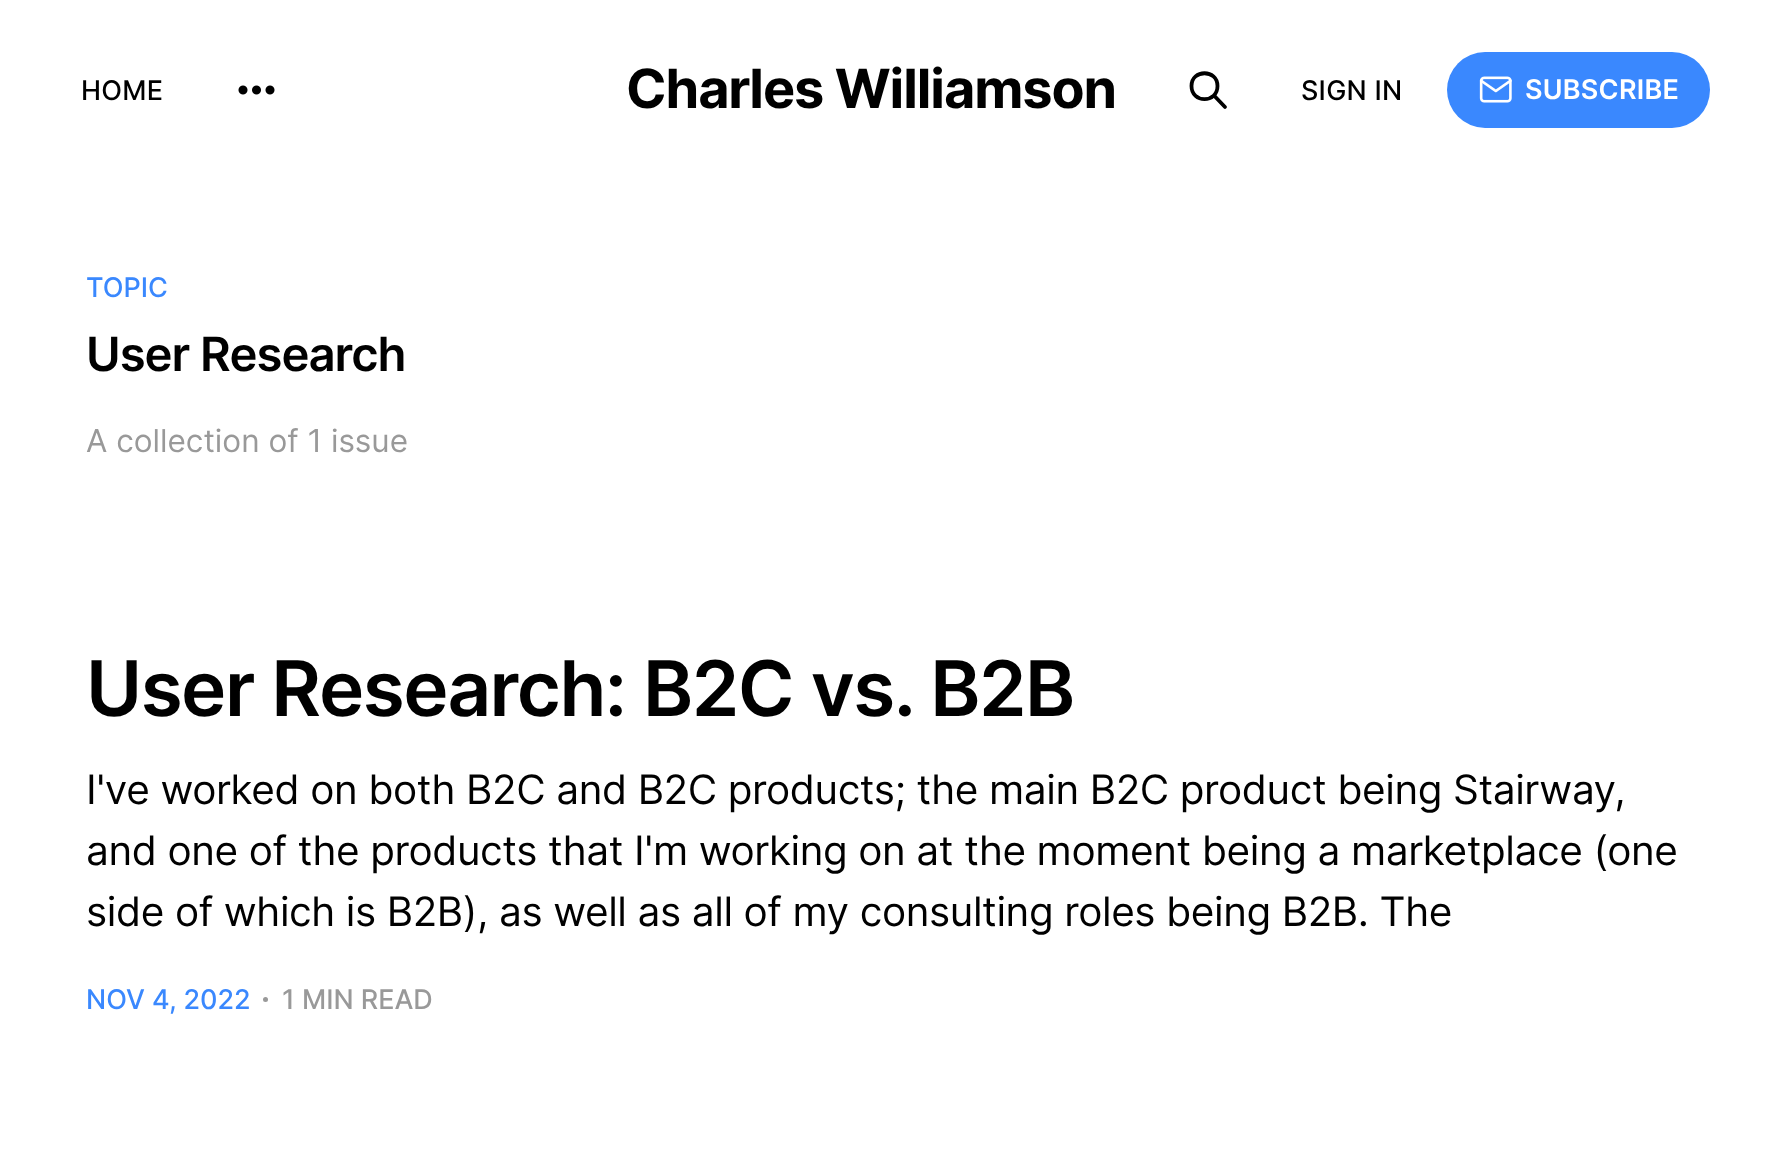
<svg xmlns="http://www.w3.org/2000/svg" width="1789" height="1175">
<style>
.a{font:500 27px Inter;letter-spacing:0.25px;fill:#000}
.b{font:bold 54px Inter;letter-spacing:-1.1px;fill:#000}
.c{font:600 27px Inter;letter-spacing:0.25px;fill:#fff}
.d{font:500 27px Inter;fill:#3a88fe}
.e{font:600 47.25px Inter;letter-spacing:-1px;fill:#000}
.f{font:31.5px Inter;fill:#999}
.g{font:600 76.5px Inter;letter-spacing:-1.5px;fill:#000}
.h{font:40.5px Inter;letter-spacing:-0.4px;fill:#000}
.i{font:500 27px Inter;fill:#999}
</style>
<rect width="100%" height="100%" fill="#fff"/>
<image href="1.png" x="238" y="85" width="37" height="10"/>
<path fill="none" stroke="#000" stroke-width="3.8" stroke-linecap="round" stroke-linejoin="round" d="M1225 107l-11-11.5m3.5-9.5c0 17.5-26 17.5-26 0c0-17 26-17 26 0z"/>
<rect fill="#3a88fe" x="1447" y="52" width="263" height="76" rx="38"/>
<image href="2.png" x="1479" y="76" width="33" height="27"/>
<circle fill="#999" cx="265.5" cy="999.5" r="2.5"/>
<text class="a" x="81" y="100">HOME</text>
<text class="b" x="626" y="108">Charles Williamson</text>
<text class="a" x="1301" y="100">SIGN IN</text>
<text class="c" x="1525" y="99">SUBSCRIBE</text>
<text class="d" x="86" y="297">TOPIC</text>
<text class="e" x="86" y="371">User Research</text>
<text class="f" x="86" y="452">A collection of 1 issue</text>
<text class="g" x="86" y="716">User Research: B2C vs. B2B</text>
<text class="h" x="86" y="804">I've worked on both B2C and B2C products; the main B2C product being Stairway,</text>
<text class="h" x="86" y="865">and one of the products that I'm working on at the moment being a marketplace (one</text>
<text class="h" x="86" y="926">side of which is B2B), as well as all of my consulting roles being B2B. The</text>
<text class="d" x="86" y="1009">NOV 4, 2022</text>
<text class="i" x="282" y="1009">1 MIN READ</text>
</svg>
